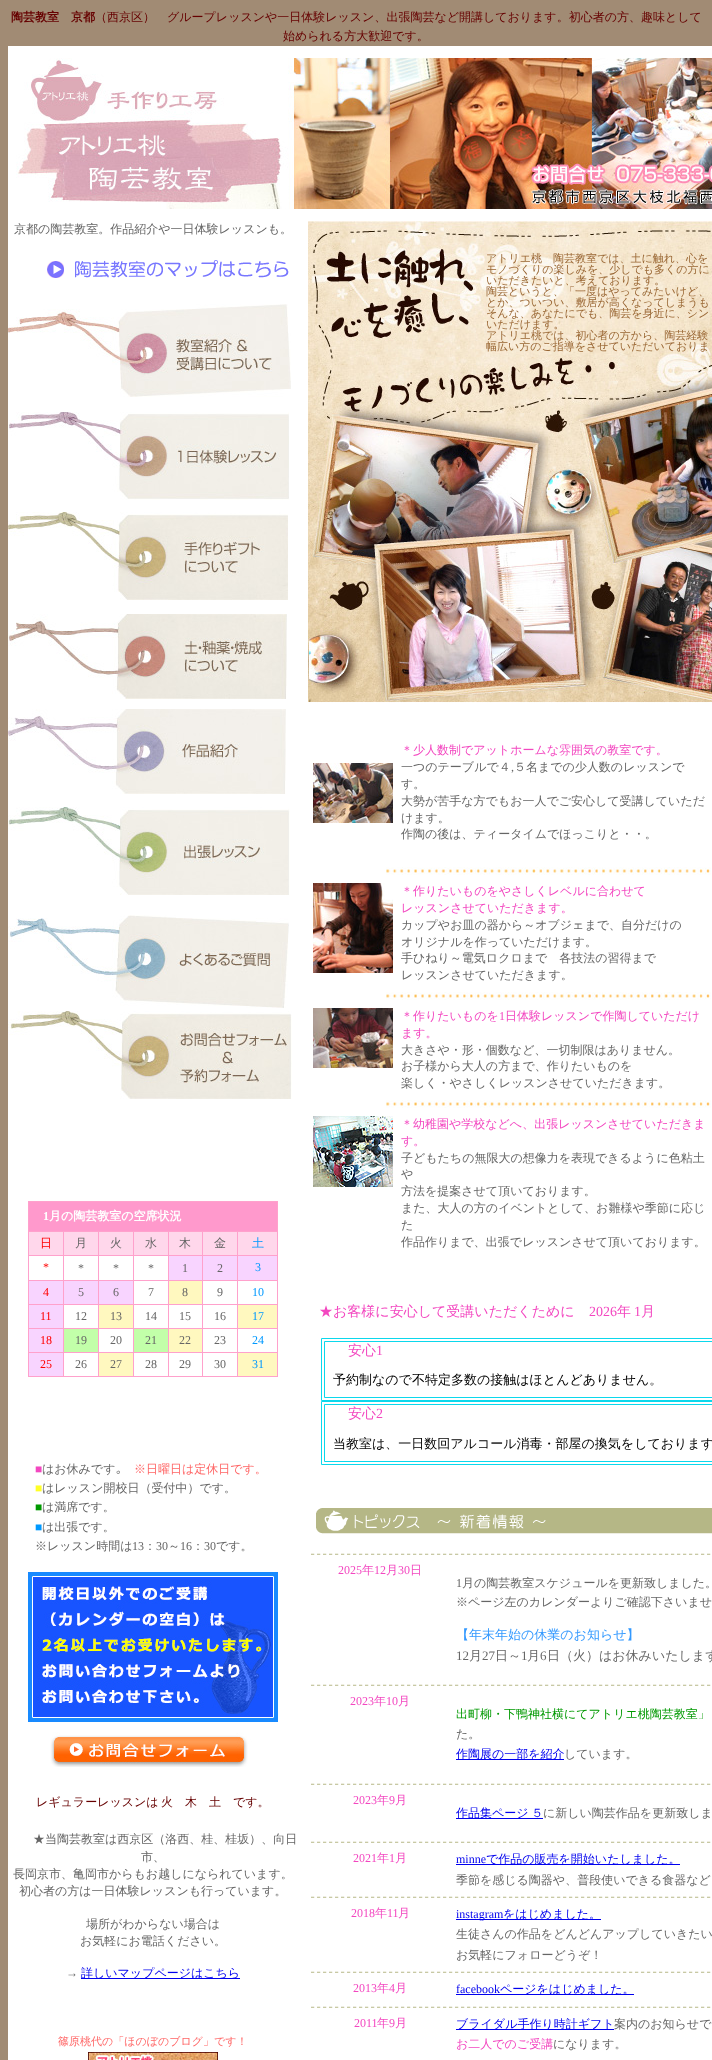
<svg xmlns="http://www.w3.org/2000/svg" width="712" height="2060">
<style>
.a{font:bold 12px WenQuanYi Zen Hei;fill:#600}
.b{font:500 12px WenQuanYi Zen Hei;fill:#600}
.c{font:500 12px WenQuanYi Zen Hei;fill:#666}
.d{font:bold 12px Liberation Serif;fill:#fff}
.e{font:bold 12px WenQuanYi Zen Hei;fill:#fff}
.f{font:500 12px WenQuanYi Zen Hei;fill:#f00}
.g{font:500 12px WenQuanYi Zen Hei;fill:#09f}
.h{font:12px Liberation Serif;fill:#f00}
.i{font:12px Liberation Serif;fill:#666}
.j{font:12px Liberation Serif;fill:#09f}
.k{font:12px Liberation Serif;fill:#f347c0}
.l{font:12px IPAGothic;fill:#666}
.m{font:500 12px WenQuanYi Zen Hei;fill:#f66}
.n{font:12px Liberation Serif;fill:#ffff26}
.o{font:12px Liberation Serif;fill:#090}
.p{font:500 12px WenQuanYi Zen Hei;fill:#00e}
.q{font:500 11px WenQuanYi Zen Hei;fill:#f66}
.r{font:500 11px WenQuanYi Zen Hei;fill:#963}
.s{font:500 12px WenQuanYi Zen Hei;fill:#f347c0}
.t{font:500 14px WenQuanYi Zen Hei;fill:#f347c0}
.u{font:14px Liberation Serif;fill:#f347c0}
.v{font:500 13px WenQuanYi Zen Hei;fill:#000}
.w{font:500 13px WenQuanYi Zen Hei;fill:#39f}
.x{font:13px Liberation Serif;fill:#666}
.y{font:500 13px WenQuanYi Zen Hei;fill:#666}
.z{font:500 12px WenQuanYi Zen Hei;fill:#090}
.a1{font:12px Liberation Serif;fill:#00e}
</style>
<rect width="100%" height="100%" fill="#a18b74"/>
<path fill="#fff" d="M8 46h704v2014H8z"/>
<image href="1.png" x="16" y="58" width="696" height="151"/>
<image href="2.png" x="47" y="260" width="242" height="18"/>
<image href="3.png" x="8" y="304" width="283" height="93"/>
<image href="4.png" x="9" y="412" width="280" height="88"/>
<image href="5.png" x="8" y="512" width="280" height="88"/>
<image href="6.png" x="8" y="614" width="279" height="85"/>
<image href="7.png" x="8" y="709" width="278" height="85"/>
<image href="8.png" x="8" y="807" width="282" height="88"/>
<image href="9.png" x="8" y="915" width="281" height="93"/>
<image href="10.png" x="8" y="1011" width="284" height="88"/>
<path fill="#ffa1cc" d="M28 1201h250v176H28z"/>
<path fill="#f9c" d="M29 1202h248v29H29z"/>
<path fill="#ffd7eb" d="M29 1232h34v23H29z"/>
<path fill="#ffd7eb" d="M64 1232h34v23H64z"/>
<path fill="#ffd7eb" d="M99 1232h34v23H99z"/>
<path fill="#ffd7eb" d="M134 1232h34v23H134z"/>
<path fill="#ffd7eb" d="M169 1232h33v23H169z"/>
<path fill="#ffd7eb" d="M203 1232h34v23H203z"/>
<path fill="#ffd7eb" d="M238 1232h39v23H238z"/>
<path fill="#fff" d="M29 1256h34v24H29z"/>
<path fill="#fff" d="M64 1256h34v24H64z"/>
<path fill="#fff" d="M99 1256h34v24H99z"/>
<path fill="#fff" d="M134 1256h34v24H134z"/>
<path fill="#f8d4ff" d="M169 1256h33v24H169z"/>
<path fill="#f8d4ff" d="M203 1256h34v24H203z"/>
<path fill="#f8d4ff" d="M238 1256h39v24H238z"/>
<path fill="#f8d4ff" d="M29 1281h34v23H29z"/>
<path fill="#f8d4ff" d="M64 1281h34v23H64z"/>
<path fill="#f8d4ff" d="M99 1281h34v23H99z"/>
<path fill="#fff" d="M134 1281h34v23H134z"/>
<path fill="#fff8bf" d="M169 1281h33v23H169z"/>
<path fill="#fff" d="M203 1281h34v23H203z"/>
<path fill="#fff" d="M238 1281h39v23H238z"/>
<path fill="#f8d4ff" d="M29 1305h34v23H29z"/>
<path fill="#fff" d="M64 1305h34v23H64z"/>
<path fill="#fff8bf" d="M99 1305h34v23H99z"/>
<path fill="#fff" d="M134 1305h34v23H134z"/>
<path fill="#fff" d="M169 1305h33v23H169z"/>
<path fill="#fff" d="M203 1305h34v23H203z"/>
<path fill="#fff8bf" d="M238 1305h39v23H238z"/>
<path fill="#f8d4ff" d="M29 1329h34v23H29z"/>
<path fill="#c2ffa9" d="M64 1329h34v23H64z"/>
<path fill="#fff" d="M99 1329h34v23H99z"/>
<path fill="#c2ffa9" d="M134 1329h34v23H134z"/>
<path fill="#fff8bf" d="M169 1329h33v23H169z"/>
<path fill="#fff" d="M203 1329h34v23H203z"/>
<path fill="#fff" d="M238 1329h39v23H238z"/>
<path fill="#f8d4ff" d="M29 1353h34v23H29z"/>
<path fill="#fff" d="M64 1353h34v23H64z"/>
<path fill="#fff8bf" d="M99 1353h34v23H99z"/>
<path fill="#fff" d="M134 1353h34v23H134z"/>
<path fill="#fff" d="M169 1353h33v23H169z"/>
<path fill="#fff" d="M203 1353h34v23H203z"/>
<path fill="#fff8bf" d="M238 1353h39v23H238z"/>
<image href="11.png" x="28" y="1572" width="250" height="195"/>
<path fill="#00e" d="M81 1978h159v1H81z"/>
<image href="12.png" x="88" y="2052" width="130" height="8"/>
<image href="13.png" x="308" y="221" width="404" height="482"/>
<image href="14.png" x="313" y="763" width="80" height="60"/>
<image href="15.png" x="386" y="867" width="325" height="8"/>
<image href="16.png" x="313" y="883" width="80" height="90"/>
<image href="15.png" x="386" y="992" width="325" height="8"/>
<image href="17.png" x="313" y="1008" width="80" height="60"/>
<image href="15.png" x="386" y="1100" width="325" height="8"/>
<image href="18.png" x="313" y="1116" width="80" height="71"/>
<path fill="none" stroke="#0bd8ec" d="M321.5 1338.5h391v62H321.5z"/>
<path fill="none" stroke="#0bd8ec" d="M324.5 1341.5h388v56H324.5z"/>
<path fill="none" stroke="#0bd8ec" d="M321.5 1401.5h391v63H321.5z"/>
<path fill="none" stroke="#0bd8ec" d="M324.5 1404.5h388v57H324.5z"/>
<image href="19.png" x="316" y="1508" width="396" height="26"/>
<image href="20.png" x="311" y="1553" width="400" height="2"/>
<image href="20.png" x="311" y="1684" width="400" height="2"/>
<path fill="#00e" d="M456 1759h108v1H456z"/>
<image href="20.png" x="311" y="1783" width="400" height="2"/>
<path fill="#00e" d="M456 1818h87v1H456z"/>
<image href="20.png" x="311" y="1841" width="400" height="2"/>
<path fill="#00e" d="M456 1864h224v1H456z"/>
<image href="20.png" x="311" y="1896" width="400" height="2"/>
<path fill="#00e" d="M456 1919h145v1H456z"/>
<image href="20.png" x="311" y="1971" width="400" height="2"/>
<path fill="#00e" d="M456 1994h178v1H456z"/>
<image href="20.png" x="311" y="2006" width="400" height="2"/>
<path fill="#00e" d="M456 2029h158v1H456z"/>
<text class="a" x="11" y="21">陶芸教室　京都</text>
<text class="b" x="95" y="21">（西京区）　グループレッスンや一日体験レッスン、出張陶芸など開講しております。初心者の方、趣味として</text>
<text class="b" x="283" y="40">始められる方大歓迎です。</text>
<text class="c" x="14" y="233">京都の陶芸教室。作品紹介や一日体験レッスンも。</text>
<text class="d" x="43" y="1220">1</text>
<text class="e" x="49" y="1220">月の陶芸教室の空席状況</text>
<text class="f" x="40" y="1247">日</text>
<text class="c" x="75" y="1247">月</text>
<text class="c" x="110" y="1247">火</text>
<text class="c" x="145" y="1247">水</text>
<text class="c" x="179" y="1247">木</text>
<text class="c" x="214" y="1247">金</text>
<text class="g" x="252" y="1247">土</text>
<text class="h" x="43" y="1271">*</text>
<text class="i" x="78" y="1272">*</text>
<text class="i" x="113" y="1272">*</text>
<text class="i" x="148" y="1272">*</text>
<text class="i" x="182" y="1272">1</text>
<text class="i" x="217" y="1272">2</text>
<text class="j" x="255" y="1271">3</text>
<text class="h" x="43" y="1296">4</text>
<text class="i" x="78" y="1296">5</text>
<text class="i" x="113" y="1296">6</text>
<text class="i" x="148" y="1296">7</text>
<text class="i" x="182" y="1296">8</text>
<text class="i" x="217" y="1296">9</text>
<text class="j" x="252" y="1296">10</text>
<text class="h" x="40" y="1320">11</text>
<text class="i" x="75" y="1320">12</text>
<text class="i" x="110" y="1320">13</text>
<text class="i" x="145" y="1320">14</text>
<text class="i" x="179" y="1320">15</text>
<text class="i" x="214" y="1320">16</text>
<text class="j" x="252" y="1320">17</text>
<text class="h" x="40" y="1344">18</text>
<text class="i" x="75" y="1344">19</text>
<text class="i" x="110" y="1344">20</text>
<text class="i" x="145" y="1344">21</text>
<text class="i" x="179" y="1344">22</text>
<text class="i" x="214" y="1344">23</text>
<text class="j" x="252" y="1344">24</text>
<text class="h" x="40" y="1368">25</text>
<text class="i" x="75" y="1368">26</text>
<text class="i" x="110" y="1368">27</text>
<text class="i" x="145" y="1368">28</text>
<text class="i" x="179" y="1368">29</text>
<text class="i" x="214" y="1368">30</text>
<text class="j" x="252" y="1368">31</text>
<text class="k" x="35" y="1473">■</text>
<text class="c" x="42" y="1473">はお休みです</text>
<text class="l" x="116" y="1473">｡</text>
<text class="m" x="134" y="1473">※日曜日は定休日です。</text>
<text class="n" x="35" y="1492">■</text>
<text class="c" x="42" y="1492">はレッスン開校日（受付中）です。</text>
<text class="o" x="35" y="1511">■</text>
<text class="c" x="42" y="1511">は満席です。</text>
<text class="j" x="35" y="1531">■</text>
<text class="c" x="42" y="1531">は出張です。</text>
<text class="c" x="35" y="1550">※レッスン時間は</text>
<text class="i" x="132" y="1550">13</text>
<text class="c" x="144" y="1550">：</text>
<text class="i" x="156" y="1550">30</text>
<text class="c" x="168" y="1550">～</text>
<text class="i" x="180" y="1550">16</text>
<text class="c" x="192" y="1550">：</text>
<text class="i" x="204" y="1550">30</text>
<text class="c" x="216" y="1550">です。</text>
<text class="b" x="36" y="1806">レギュラーレッスンは</text>
<text class="b" x="161" y="1806">火　木　土　です。</text>
<text class="c" x="33" y="1843">★当陶芸教室は西京区（洛西、桂、桂坂）、向日</text>
<text class="c" x="141" y="1861">市、</text>
<text class="c" x="13" y="1878">長岡京市、亀岡市からもお越しになられています。</text>
<text class="c" x="19" y="1895">初心者の方は一日体験レッスンも行っています。</text>
<text class="c" x="86" y="1928">場所がわからない場合は</text>
<text class="c" x="80" y="1945">お気軽にお電話ください。</text>
<text class="i" x="66" y="1977">→</text>
<text class="p" x="81" y="1977">詳しいマップページはこちら</text>
<text class="q" x="58" y="2045">篠原桃代の「ほのぼのブログ」です！</text>
<text class="r" x="486" y="262">アトリエ桃　陶芸教室では、土に触れ、心を</text>
<text class="r" x="486" y="273">モノづくりの楽しみを、少しでも多くの方に</text>
<text class="r" x="486" y="284">いただきたいと、考えております。</text>
<text class="r" x="486" y="295">陶芸というと、「一度はやってみたいけど、</text>
<text class="r" x="486" y="306">とか、ついつい、敷居が高くなってしまうも</text>
<text class="r" x="486" y="317">そんな、あなたにでも、陶芸を身近に、シン</text>
<text class="r" x="486" y="328">いただけます。</text>
<text class="r" x="486" y="339">アトリエ桃では、初心者の方から、陶芸経験</text>
<text class="r" x="486" y="350">幅広い方のご指導をさせていただいておりま</text>
<text class="s" x="401" y="754">＊少人数制でアットホームな雰囲気の教室です。</text>
<text class="c" x="401" y="771">一つのテーブルで４</text>
<text class="i" x="511" y="771">,</text>
<text class="c" x="514" y="771">５名までの少人数のレッスンで</text>
<text class="c" x="401" y="788">す。</text>
<text class="c" x="401" y="805">大勢が苦手な方でもお一人でご安心して受講していただ</text>
<text class="c" x="401" y="822">けます。</text>
<text class="c" x="401" y="838">作陶の後は、ティータイムでほっこりと・・。</text>
<text class="s" x="401" y="895">＊作りたいものをやさしくレベルに合わせて</text>
<text class="s" x="401" y="912">レッスンさせていただきます。</text>
<text class="c" x="401" y="929">カップやお皿の器から～オブジェまで、自分だけの</text>
<text class="c" x="401" y="946">オリジナルを作っていただけます。</text>
<text class="c" x="401" y="962">手ひねり～電気ロクロまで　各技法の習得まで</text>
<text class="c" x="401" y="979">レッスンさせていただきます。</text>
<text class="s" x="401" y="1020">＊作りたいものを</text>
<text class="k" x="499" y="1020">1</text>
<text class="s" x="505" y="1020">日体験レッスンで作陶していただけ</text>
<text class="s" x="401" y="1037">ます。</text>
<text class="c" x="401" y="1054">大きさや・形・個数など、一切制限はありません。</text>
<text class="c" x="401" y="1070">お子様から大人の方まで、作りたいものを</text>
<text class="c" x="401" y="1087">楽しく・やさしくレッスンさせていただきます。</text>
<text class="s" x="401" y="1128">＊幼稚園や学校などへ、出張レッスンさせていただきま</text>
<text class="s" x="401" y="1145">す。</text>
<text class="c" x="401" y="1162">子どもたちの無限大の想像力を表現できるように色粘土</text>
<text class="c" x="401" y="1178">や</text>
<text class="c" x="401" y="1195">方法を提案させて頂いております。</text>
<text class="c" x="401" y="1212">また、大人の方のイベントとして、お雛様や季節に応じ</text>
<text class="c" x="401" y="1229">た</text>
<text class="c" x="401" y="1246">作品作りまで、出張でレッスンさせて頂いております。</text>
<text class="t" x="319" y="1316">★お客様に安心して受講いただくために</text>
<text class="u" x="589" y="1316">2026</text>
<text class="t" x="617" y="1316">年</text>
<text class="u" x="634" y="1316">1</text>
<text class="t" x="641" y="1316">月</text>
<text class="t" x="348" y="1355">安心</text>
<text class="u" x="376" y="1355">1</text>
<text class="v" x="333" y="1384">予約制なので不特定多数の接触はほとんどありません。</text>
<text class="t" x="348" y="1418">安心</text>
<text class="u" x="376" y="1418">2</text>
<text class="v" x="333" y="1448">当教室は、一日数回アルコール消毒・部屋の換気をしております</text>
<text class="k" x="338" y="1574">2025</text>
<text class="s" x="362" y="1574">年</text>
<text class="k" x="374" y="1574">12</text>
<text class="s" x="386" y="1574">月</text>
<text class="k" x="398" y="1574">30</text>
<text class="s" x="410" y="1574">日</text>
<text class="i" x="456" y="1587">1</text>
<text class="c" x="462" y="1587">月の陶芸教室スケジュールを更新致しました。</text>
<text class="c" x="456" y="1606">※ページ左のカレンダーよりご確認下さいませ</text>
<text class="w" x="456" y="1639">【年末年始の休業のお知らせ】</text>
<text class="x" x="456" y="1660">12</text>
<text class="y" x="469" y="1660">月</text>
<text class="x" x="482" y="1660">27</text>
<text class="y" x="495" y="1660">日～</text>
<text class="x" x="521" y="1660">1</text>
<text class="y" x="527" y="1660">月</text>
<text class="x" x="540" y="1660">6</text>
<text class="y" x="547" y="1660">日（火）はお休みいたします</text>
<text class="k" x="350" y="1705">2023</text>
<text class="s" x="374" y="1705">年</text>
<text class="k" x="386" y="1705">10</text>
<text class="s" x="398" y="1705">月</text>
<text class="z" x="456" y="1718">出町柳・下鴨神社横にてアトリエ桃陶芸教室」</text>
<text class="c" x="456" y="1738">た。</text>
<text class="p" x="456" y="1758">作陶展の一部を紹介</text>
<text class="c" x="564" y="1758">しています。</text>
<text class="k" x="353" y="1804">2023</text>
<text class="s" x="377" y="1804">年</text>
<text class="k" x="389" y="1804">9</text>
<text class="s" x="395" y="1804">月</text>
<text class="p" x="456" y="1817" word-spacing="-1">作品集ページ ５</text>
<text class="c" x="543" y="1817">に新しい陶芸作品を更新致しま</text>
<text class="k" x="353" y="1862">2021</text>
<text class="s" x="377" y="1862">年</text>
<text class="k" x="389" y="1862">1</text>
<text class="s" x="395" y="1862">月</text>
<text class="a1" x="456" y="1863">minne</text>
<text class="p" x="486" y="1863">で作品の販売を開始いたしました。</text>
<text class="c" x="456" y="1884">季節を感じる陶器や、普段使いできる食器など</text>
<text class="k" x="351" y="1917">2018</text>
<text class="s" x="375" y="1917">年</text>
<text class="k" x="387" y="1917">11</text>
<text class="s" x="398" y="1917">月</text>
<text class="a1" x="456" y="1918">instagram</text>
<text class="p" x="503" y="1918">をはじめました。</text>
<text class="c" x="456" y="1938">生徒さんの作品をどんどんアップしていきたい</text>
<text class="c" x="456" y="1959">お気軽にフォローどうぞ！</text>
<text class="k" x="353" y="1992">2013</text>
<text class="s" x="377" y="1992">年</text>
<text class="k" x="389" y="1992">4</text>
<text class="s" x="395" y="1992">月</text>
<text class="a1" x="456" y="1993">facebook</text>
<text class="p" x="500" y="1993">ページをはじめました。</text>
<text class="k" x="354" y="2027">2011</text>
<text class="s" x="377" y="2027">年</text>
<text class="k" x="389" y="2027">9</text>
<text class="s" x="395" y="2027">月</text>
<text class="p" x="456" y="2028">ブライダル手作り時計ギフト</text>
<text class="c" x="614" y="2028">案内のお知らせで</text>
<text class="s" x="456" y="2048">お二人でのご受講</text>
<text class="c" x="553" y="2048">になります。</text>
</svg>
